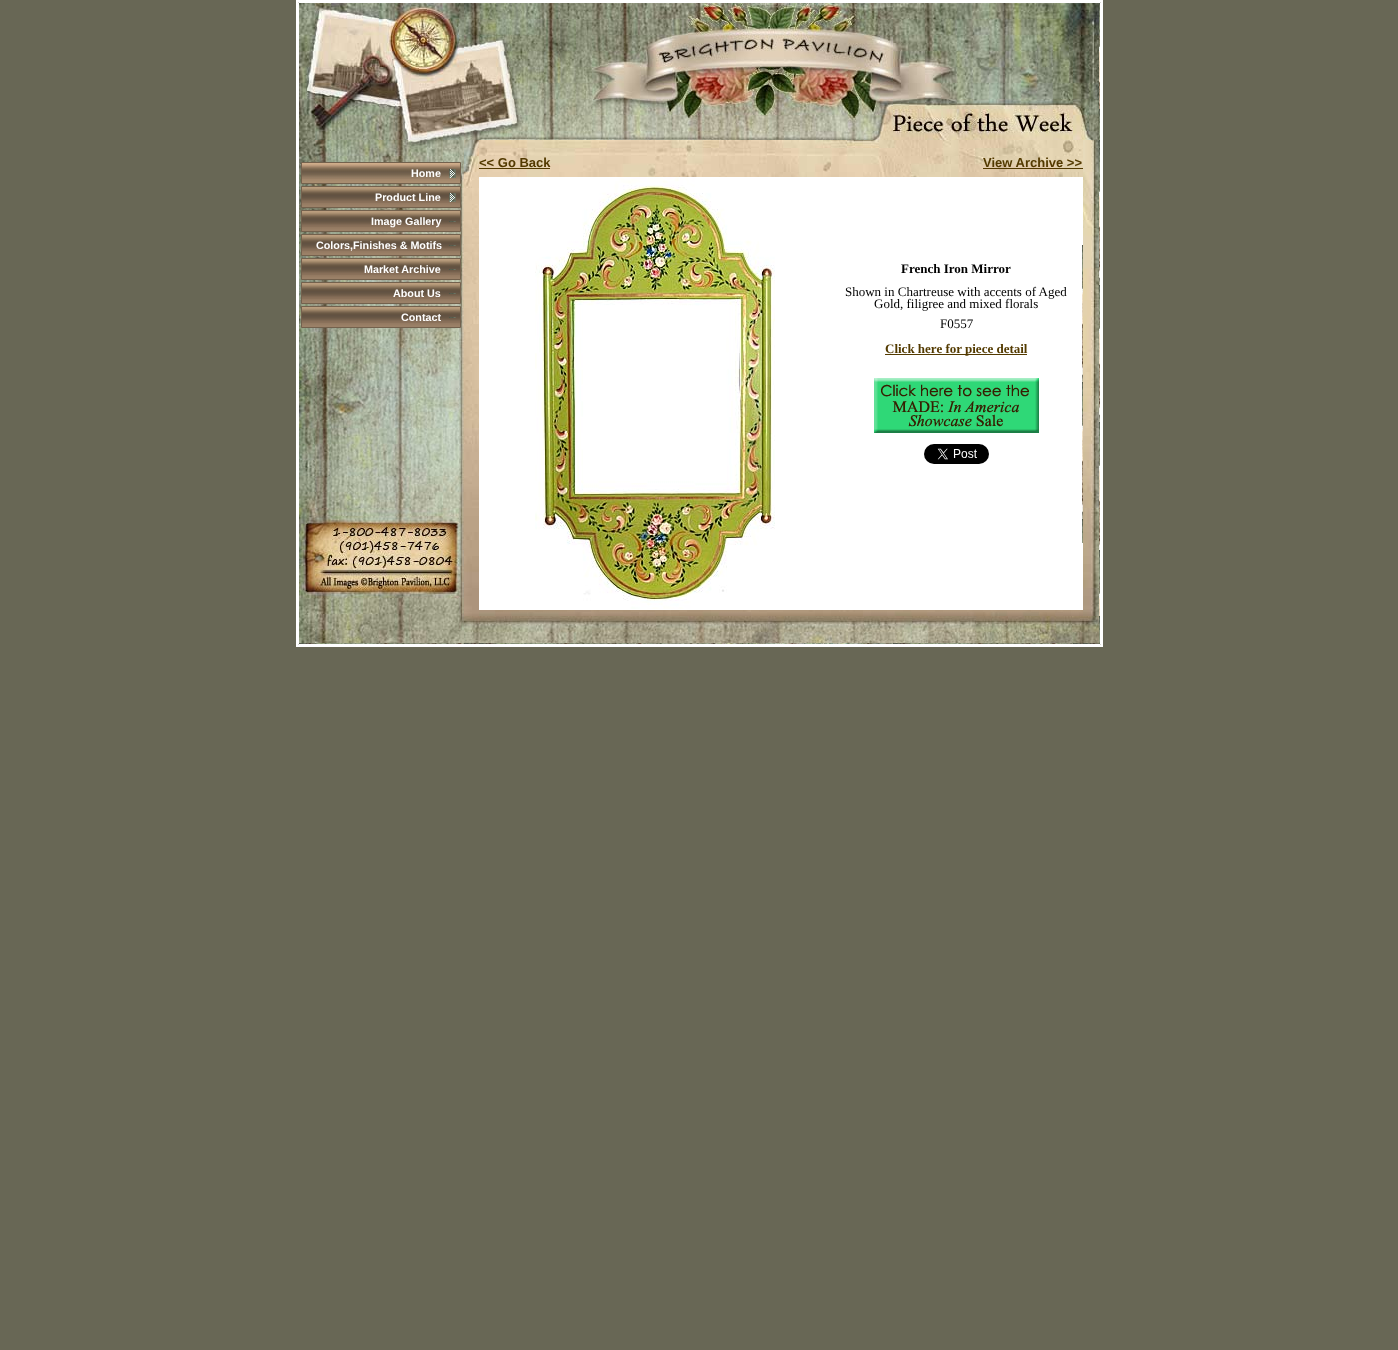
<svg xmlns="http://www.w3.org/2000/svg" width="1398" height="1350">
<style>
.a{font:bold 10.75px Liberation Sans;fill:#fff}
.b{font:bold 13px Liberation Sans;fill:#533a00}
.c{font:bold 13px Liberation Serif;fill:#000}
.d{font:13px Liberation Serif;fill:#000}
.e{font:bold 13px Liberation Serif;fill:#533a00}
</style>
<rect width="100%" height="100%" fill="#686755"/>
<path fill="none" stroke="#fff" stroke-width="2" d="M297 1h805v645H297z"/>
<path fill="none" stroke="#fff" d="M298.5 2.5h802v642H298.5z"/>
<image href="1.png" x="299" y="3" width="165" height="137"/>
<image href="2.png" x="464" y="3" width="429" height="137"/>
<image href="3.png" x="893" y="3" width="180" height="106"/>
<image href="4.png" x="1073" y="3" width="26" height="137"/>
<image href="5.png" x="1099" y="3" width="1" height="106"/>
<image href="6.png" x="893" y="109" width="180" height="31"/>
<image href="7.png" x="1099" y="109" width="1" height="31"/>
<image href="8.png" x="464" y="140" width="15" height="476"/>
<image href="9.png" x="479" y="140" width="604" height="8"/>
<image href="10.png" x="1083" y="140" width="16" height="476"/>
<image href="11.png" x="1099" y="140" width="1" height="8"/>
<image href="12.png" x="299" y="140" width="165" height="410"/>
<path fill="none" stroke="#73614d" d="M301.5 162.5h159v21H301.5z"/>
<image href="13.png" x="302" y="163" width="158" height="20"/>
<image href="14.png" x="449" y="169" width="7" height="9"/>
<path fill="none" stroke="#73614d" d="M301.5 186.5h159v21H301.5z"/>
<image href="15.png" x="302" y="187" width="158" height="20"/>
<image href="14.png" x="449" y="193" width="7" height="9"/>
<path fill="none" stroke="#73614d" d="M301.5 210.5h159v21H301.5z"/>
<image href="15.png" x="302" y="211" width="158" height="20"/>
<image href="16.png" x="449" y="221" width="7" height="1"/>
<path fill="none" stroke="#73614d" d="M301.5 234.5h159v21H301.5z"/>
<image href="15.png" x="302" y="235" width="158" height="20"/>
<image href="16.png" x="449" y="245" width="7" height="1"/>
<path fill="none" stroke="#73614d" d="M301.5 258.5h159v21H301.5z"/>
<image href="15.png" x="302" y="259" width="158" height="20"/>
<image href="16.png" x="449" y="269" width="7" height="1"/>
<path fill="none" stroke="#73614d" d="M301.5 282.5h159v21H301.5z"/>
<image href="15.png" x="302" y="283" width="158" height="20"/>
<image href="16.png" x="449" y="293" width="7" height="1"/>
<path fill="none" stroke="#73614d" d="M301.5 306.5h159v21H301.5z"/>
<image href="15.png" x="302" y="307" width="158" height="20"/>
<image href="16.png" x="449" y="317" width="7" height="1"/>
<image href="17.png" x="479" y="148" width="604" height="468"/>
<path fill="#533a00" d="M479 168h71v1H479z"/>
<path fill="#533a00" d="M983 168h100v1H983z"/>
<path fill="#fff" d="M479 177h604v433H479z"/>
<image href="18.png" x="535" y="177" width="240" height="432"/>
<path fill="#533a00" d="M885 354h142v1H885z"/>
<image href="19.png" x="874" y="378" width="165" height="55"/>
<image href="20.png" x="924" y="444" width="65" height="20"/>
<image href="21.png" x="1082" y="245" width="1" height="298"/>
<image href="22.png" x="1099" y="148" width="1" height="402"/>
<image href="23.png" x="299" y="550" width="165" height="93"/>
<image href="24.png" x="1099" y="550" width="1" height="66"/>
<image href="25.png" x="464" y="616" width="635" height="27"/>
<image href="26.png" x="1099" y="616" width="1" height="27"/>
<image href="27.png" x="299" y="643" width="165" height="1"/>
<image href="28.png" x="464" y="643" width="15" height="1"/>
<image href="29.png" x="479" y="643" width="414" height="1"/>
<image href="30.png" x="893" y="643" width="180" height="1"/>
<image href="31.png" x="1073" y="643" width="10" height="1"/>
<image href="32.png" x="1083" y="643" width="16" height="1"/>
<text class="a" x="411" y="177">Home</text>
<text class="a" x="375" y="201">Product Line</text>
<text class="a" x="371" y="225">Image Gallery</text>
<text class="a" x="316" y="249">Colors,Finishes &amp; Motifs</text>
<text class="a" x="364" y="273">Market Archive</text>
<text class="a" x="393" y="297">About Us</text>
<text class="a" x="401" y="321">Contact</text>
<text class="b" x="479" y="167">&lt;&lt; Go Back</text>
<text class="b" x="983" y="167">View Archive &gt;&gt;</text>
<text class="c" x="901" y="273">French Iron Mirror</text>
<text class="d" x="845" y="296">Shown in Chartreuse with accents of Aged</text>
<text class="d" x="874" y="308">Gold, filigree and mixed florals</text>
<text class="d" x="940" y="328">F0557</text>
<text class="e" x="885" y="353">Click here for piece detail</text>
</svg>
